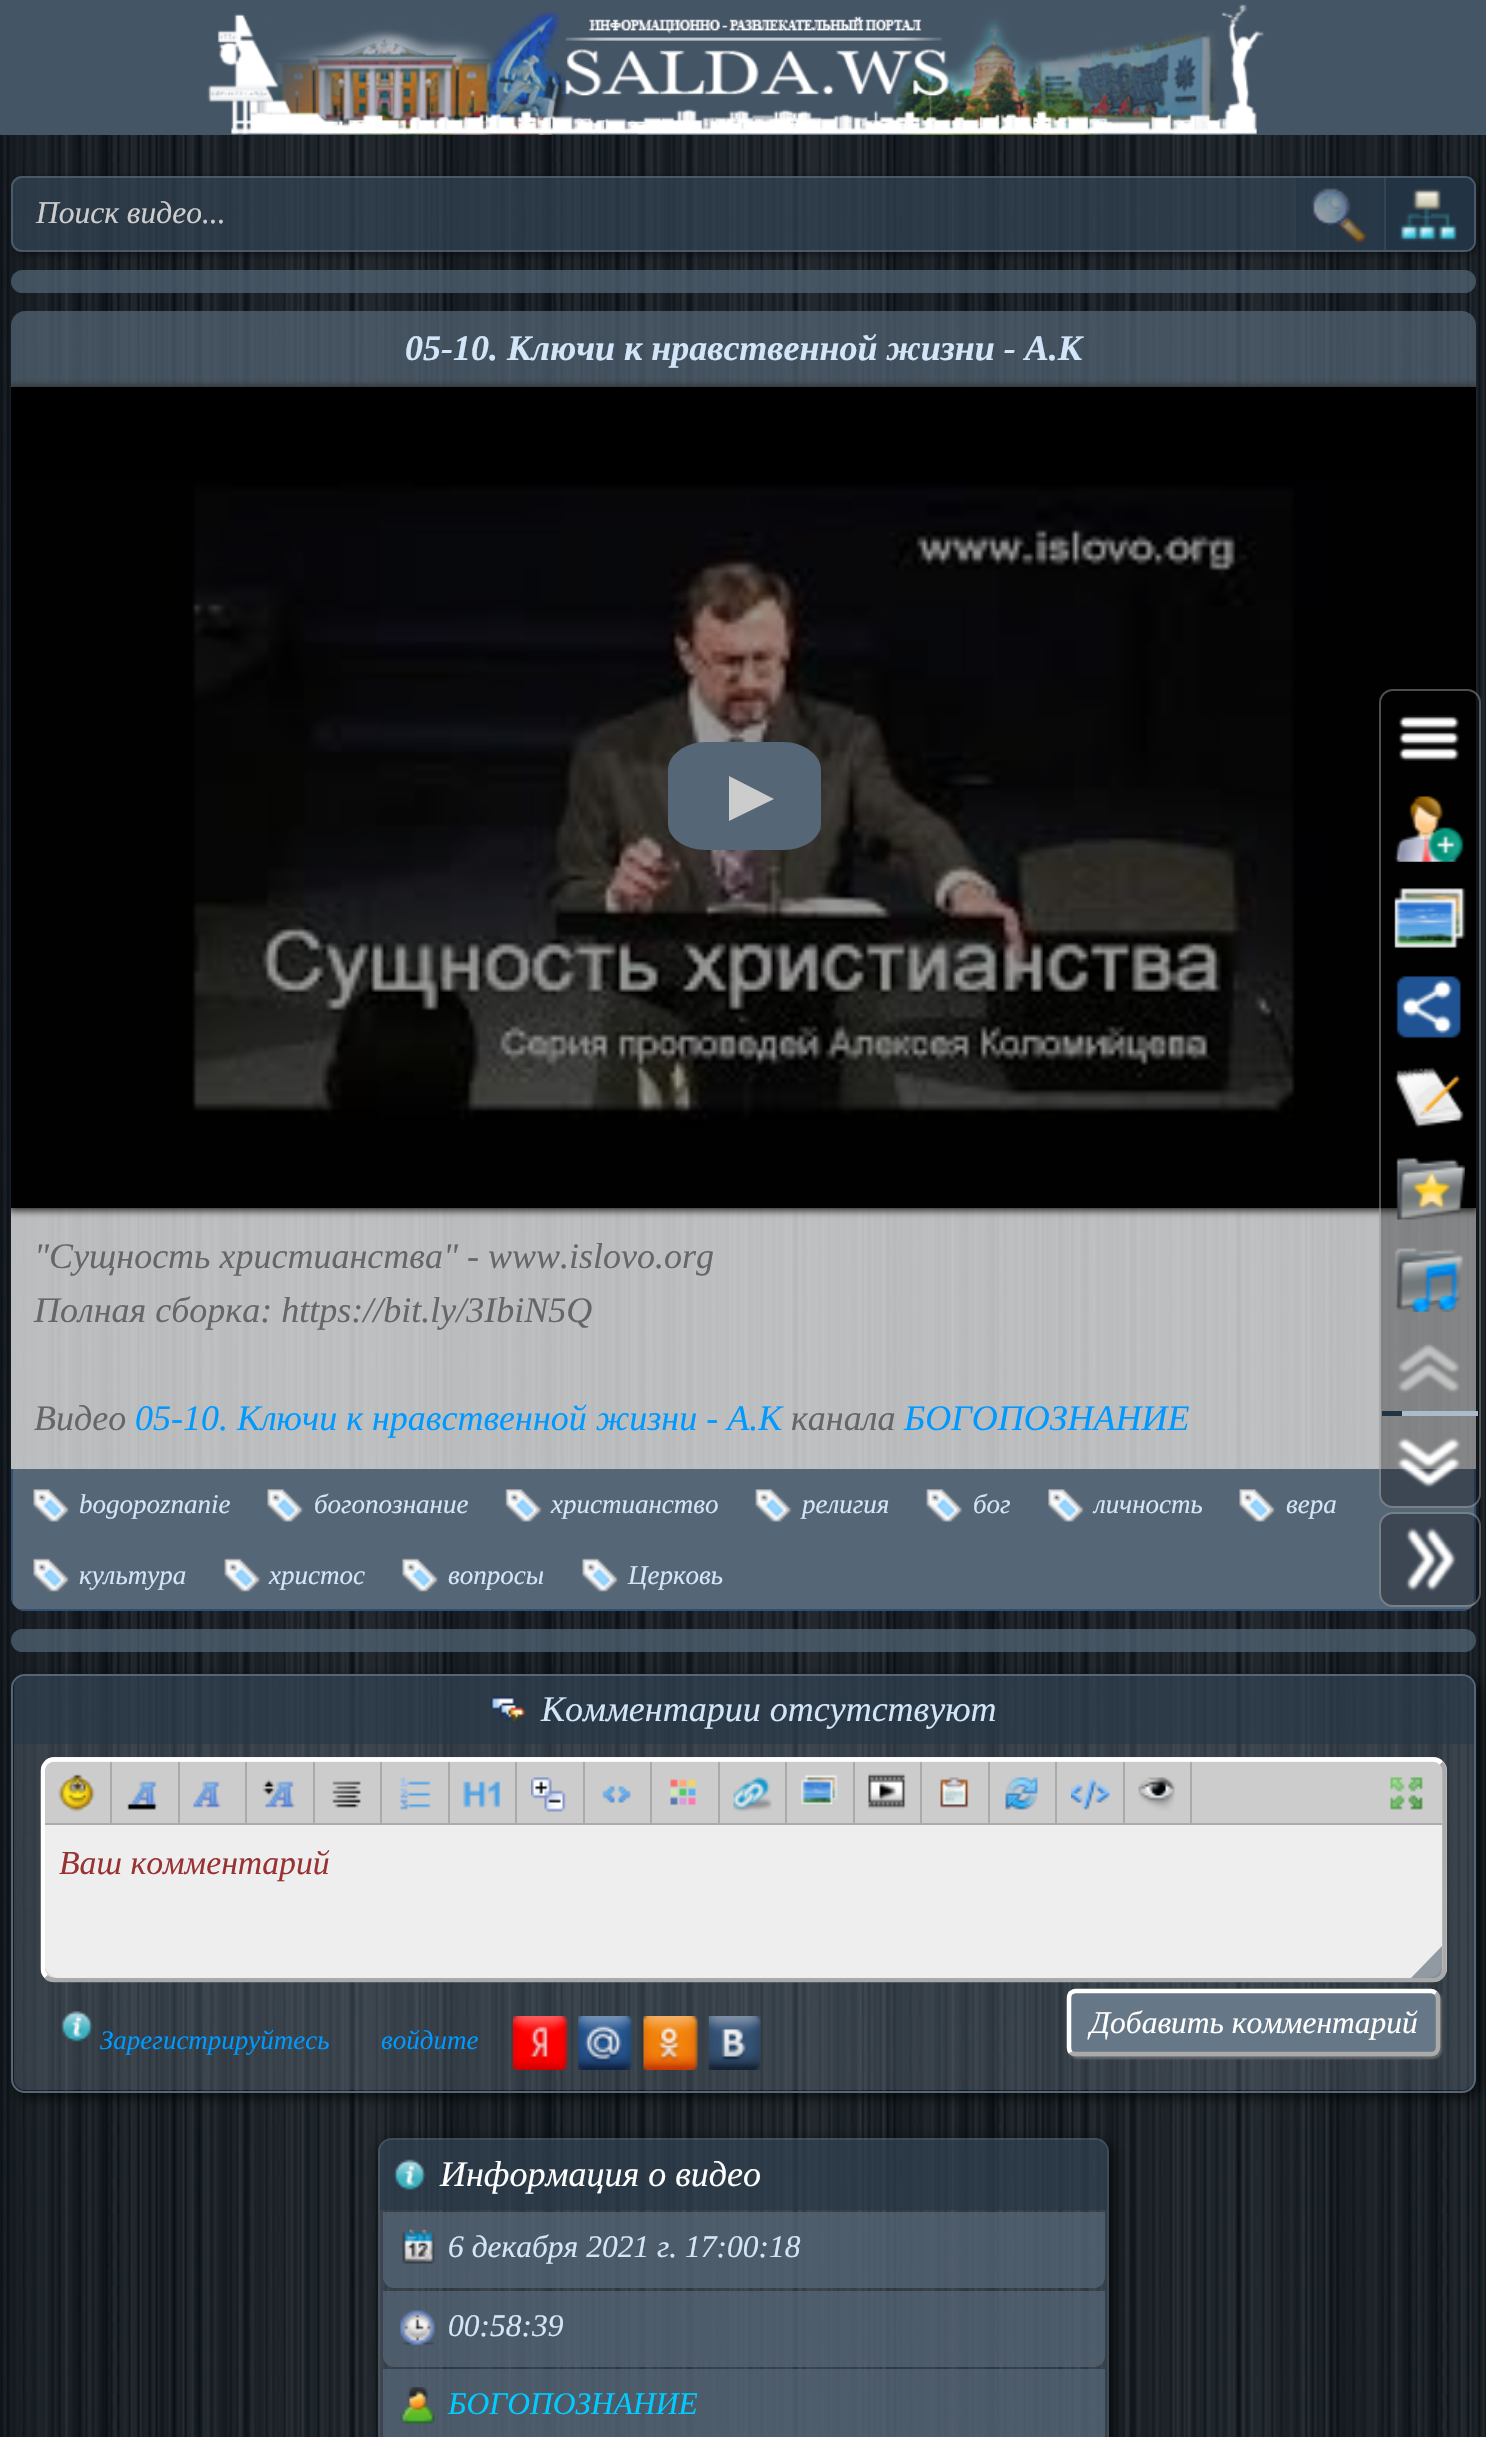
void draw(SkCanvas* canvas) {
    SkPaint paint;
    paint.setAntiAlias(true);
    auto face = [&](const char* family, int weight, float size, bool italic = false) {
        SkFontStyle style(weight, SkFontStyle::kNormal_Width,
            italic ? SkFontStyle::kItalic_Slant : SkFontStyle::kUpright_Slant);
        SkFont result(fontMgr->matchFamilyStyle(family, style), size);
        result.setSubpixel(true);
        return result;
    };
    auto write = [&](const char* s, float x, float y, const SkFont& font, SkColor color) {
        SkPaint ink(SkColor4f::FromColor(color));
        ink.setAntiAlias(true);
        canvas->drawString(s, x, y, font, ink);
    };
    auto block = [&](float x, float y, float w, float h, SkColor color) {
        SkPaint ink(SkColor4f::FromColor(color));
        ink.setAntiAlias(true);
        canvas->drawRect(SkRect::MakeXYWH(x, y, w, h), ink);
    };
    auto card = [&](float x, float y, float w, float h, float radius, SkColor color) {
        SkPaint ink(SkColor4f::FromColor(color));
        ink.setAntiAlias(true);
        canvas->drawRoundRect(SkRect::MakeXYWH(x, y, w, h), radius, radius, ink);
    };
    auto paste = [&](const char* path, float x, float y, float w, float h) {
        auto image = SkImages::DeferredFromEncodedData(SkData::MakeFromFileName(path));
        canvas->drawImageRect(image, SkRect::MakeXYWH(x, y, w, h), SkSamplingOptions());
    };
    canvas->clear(SK_ColorWHITE);
    paste("pic1.png", 0, 135, 1486, 2302);
    block(0, 0, 1486, 135, SkColorSetRGB(68, 85, 102));
    paste("pic2.png", 207, 4, 1058, 131);
    canvas->save();
    canvas->clipPath(SkPathBuilder(SkPathFillType::kEvenOdd).moveTo(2, 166).lineTo(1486, 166).lineTo(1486, 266).lineTo(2, 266).close().moveTo(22, 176).lineTo(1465, 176).cubicTo(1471, 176, 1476, 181, 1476, 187).lineTo(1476, 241).cubicTo(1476, 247, 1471, 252, 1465, 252).lineTo(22, 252).cubicTo(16, 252, 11, 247, 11, 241).lineTo(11, 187).cubicTo(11, 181, 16, 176, 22, 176).close().detach(), true);
    paint.setColor(SkColorSetARGB(128, 0, 0, 0));
    paint.setMaskFilter(SkMaskFilter::MakeBlur(kNormal_SkBlurStyle, 3.5f));
    canvas->drawRoundRect(SkRect::MakeXYWH(14, 178, 1464, 76), 11, 11, paint);
    paint.setMaskFilter(nullptr);
    canvas->restore();
    card(11, 176, 1465, 76, 11, SkColorSetARGB(179, 51, 68, 85));
    paint.setStyle(SkPaint::kStroke_Style);
    paint.setStrokeWidth(2);
    paint.setColor(SkColorSetARGB(128, 102, 119, 136));
    canvas->drawRoundRect(SkRect::MakeXYWH(12, 177, 1463, 74), 10, 10, paint);
    auto kFont1 = face("Liberation Serif", 400, 31.5f, true);
    write("Поиск видео...", 36, 223, kFont1, SkColorSetRGB(204, 204, 204));
    canvas->save();
    canvas->clipPath(SkPathBuilder().moveTo(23, 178).lineTo(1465, 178).cubicTo(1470, 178, 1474, 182, 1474, 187).lineTo(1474, 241).cubicTo(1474, 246, 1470, 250, 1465, 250).lineTo(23, 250).cubicTo(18, 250, 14, 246, 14, 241).lineTo(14, 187).cubicTo(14, 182, 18, 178, 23, 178).close().detach(), true);
    canvas->clipPath(SkPathBuilder(SkPathFillType::kEvenOdd).moveTo(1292, 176).lineTo(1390, 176).lineTo(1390, 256).lineTo(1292, 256).close().moveTo(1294, 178).lineTo(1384, 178).lineTo(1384, 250).lineTo(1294, 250).close().detach(), true);
    paint.setStyle(SkPaint::kFill_Style);
    paint.setColor(SkColorSetARGB(128, 102, 102, 102));
    paint.setMaskFilter(SkMaskFilter::MakeBlur(kNormal_SkBlurStyle, 1));
    canvas->drawRect(SkRect::MakeXYWH(1296, 180, 90, 72), paint);
    paint.setMaskFilter(nullptr);
    canvas->restore();
    block(1296, 178, 88, 72, SkColorSetARGB(128, 34, 51, 68));
    paste("pic3.png", 1311, 188, 56, 56);
    block(1294, 178, 2, 72, SkColorSetRGB(47, 62, 78));
    paint.setColor(SkColorSetRGB(34, 51, 68));
    canvas->drawPath(SkPathBuilder().moveTo(1384, 178).lineTo(1465, 178).cubicTo(1470, 178, 1474, 182, 1474, 187).lineTo(1474, 241).cubicTo(1474, 246, 1470, 250, 1465, 250).lineTo(1384, 250).close().detach(), paint);
    paste("pic4.png", 1399, 188, 58, 54);
    block(1384, 178, 2, 72, SkColorSetRGB(51, 68, 85));
    card(11, 270, 1465, 23, 11.5f, SkColorSetARGB(179, 84, 102, 120));
    paint.setColor(SkColorSetARGB(179, 85, 102, 119));
    canvas->drawPath(SkPathBuilder().moveTo(25, 311).lineTo(1462, 311).cubicTo(1469.5f, 311, 1476, 317.5f, 1476, 325).lineTo(1476, 387).lineTo(11, 387).lineTo(11, 325).cubicTo(11, 317.5f, 17.5f, 311, 25, 311).close().detach(), paint);
    auto kFont2 = face("Liberation Serif", 700, 36, true);
    write("05-10. Ключи к нравственной жизни - А.К", 405, 360, kFont2, SkColorSetRGB(211, 230, 249));
    block(11, 1208, 1465, 261, SkColorSetARGB(179, 255, 255, 255));
    canvas->save();
    canvas->clipPath(SkPathBuilder().moveTo(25, 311).lineTo(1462, 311).cubicTo(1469.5f, 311, 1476, 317.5f, 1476, 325).lineTo(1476, 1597).cubicTo(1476, 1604.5f, 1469.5f, 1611, 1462, 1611).lineTo(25, 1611).cubicTo(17.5f, 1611, 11, 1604.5f, 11, 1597).lineTo(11, 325).cubicTo(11, 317.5f, 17.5f, 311, 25, 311).close().detach(), true);
    paint.setColor(SkColorSetRGB(51, 51, 51));
    paint.setMaskFilter(SkMaskFilter::MakeBlur(kNormal_SkBlurStyle, 3.5f));
    canvas->drawRect(SkRect::MakeXYWH(9, 385, 1469, 826), paint);
    paint.setMaskFilter(nullptr);
    canvas->restore();
    block(11, 387, 1465, 821, SK_ColorBLACK);
    paste("pic5.png", 12, 481, 1464, 728);
    block(193, 484, 1102, 635, SkColorSetARGB(102, 0, 0, 0));
    paint.setColor(SkColorSetRGB(85, 102, 119));
    canvas->drawPath(SkPathBuilder().moveTo(706, 742).lineTo(783, 742).cubicTo(804, 742, 821, 755, 821, 770).lineTo(821, 824).cubicTo(821, 838, 804, 850, 783, 850).lineTo(706, 850).cubicTo(685, 850, 668, 838, 668, 824).lineTo(668, 770).cubicTo(668, 755, 685, 742, 706, 742).close().detach(), paint);
    paint.setColor(SkColorSetRGB(204, 204, 204));
    canvas->drawPath(SkPathBuilder().moveTo(729, 821).lineTo(729, 776).lineTo(774, 799).close().detach(), paint);
    auto kFont3 = face("Liberation Serif", 400, 36, true);
    write("\"Сущность христианства\" - www.islovo.org", 34, 1268, kFont3, SkColorSetRGB(102, 102, 102));
    write("Полная сборка: https://bit.ly/3IbiN5Q", 34, 1322, kFont3, SkColorSetRGB(102, 102, 102));
    write("Видео", 34, 1430, kFont3, SkColorSetRGB(102, 102, 102));
    write("05-10. Ключи к нравственной жизни - А.К", 135, 1430, kFont3, SkColorSetRGB(0, 153, 255));
    write("канала", 791, 1430, kFont3, SkColorSetRGB(102, 102, 102));
    write("БОГОПОЗНАНИЕ", 904, 1430, kFont3, SkColorSetRGB(0, 153, 255));
    paint.setColor(SkColorSetRGB(85, 102, 119));
    canvas->drawPath(SkPathBuilder().moveTo(11, 1469).lineTo(1476, 1469).lineTo(1476, 1597).cubicTo(1476, 1604.5f, 1469.5f, 1611, 1462, 1611).lineTo(25, 1611).cubicTo(17.5f, 1611, 11, 1604.5f, 11, 1597).close().detach(), paint);
    canvas->save();
    canvas->clipPath(SkPathBuilder().moveTo(25, 311).lineTo(1462, 311).cubicTo(1469.5f, 311, 1476, 317.5f, 1476, 325).lineTo(1476, 1597).cubicTo(1476, 1604.5f, 1469.5f, 1611, 1462, 1611).lineTo(25, 1611).cubicTo(17.5f, 1611, 11, 1604.5f, 11, 1597).lineTo(11, 325).cubicTo(11, 317.5f, 17.5f, 311, 25, 311).close().detach(), true);
    block(1474, 1469, 2, 142, SkColorSetRGB(46, 80, 119));
    block(11, 1609, 1465, 2, SkColorSetRGB(46, 80, 119));
    block(11, 1469, 2, 142, SkColorSetRGB(46, 80, 119));
    canvas->restore();
    paste("pic6.png", 33, 1489, 37, 33);
    auto kFont4 = face("Liberation Serif", 400, 27, true);
    write("bogopoznanie", 79, 1513, kFont4, SkColorSetRGB(211, 230, 249));
    paste("pic6.png", 267, 1489, 37, 33);
    write("богопознание", 314, 1513, kFont4, SkColorSetRGB(211, 230, 249));
    paste("pic7.png", 505, 1489, 37, 33);
    write("христианство", 551, 1513, kFont4, SkColorSetRGB(211, 230, 249));
    paste("pic8.png", 755, 1489, 37, 33);
    write("религия", 802, 1513, kFont4, SkColorSetRGB(211, 230, 249));
    paste("pic9.png", 926, 1489, 37, 33);
    write("бог", 973, 1513, kFont4, SkColorSetRGB(211, 230, 249));
    paste("pic10.png", 1048, 1489, 37, 33);
    write("личность", 1094, 1513, kFont4, SkColorSetRGB(211, 230, 249));
    paste("pic6.png", 1239, 1489, 37, 33);
    write("вера", 1286, 1513, kFont4, SkColorSetRGB(211, 230, 249));
    paste("pic11.png", 33, 1558, 37, 34);
    write("культура", 79, 1584, kFont4, SkColorSetRGB(211, 230, 249));
    paste("pic12.png", 224, 1558, 37, 34);
    write("христос", 269, 1584, kFont4, SkColorSetRGB(211, 230, 249));
    paste("pic13.png", 402, 1558, 37, 34);
    write("вопросы", 448, 1584, kFont4, SkColorSetRGB(211, 230, 249));
    paste("pic11.png", 582, 1558, 37, 34);
    write("Церковь", 628, 1584, kFont4, SkColorSetRGB(211, 230, 249));
    card(11, 1629, 1465, 23, 11.5f, SkColorSetARGB(179, 84, 102, 120));
    canvas->save();
    canvas->clipPath(SkPathBuilder(SkPathFillType::kEvenOdd).moveTo(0, 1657).lineTo(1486, 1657).lineTo(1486, 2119).lineTo(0, 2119).close().moveTo(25, 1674).lineTo(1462, 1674).cubicTo(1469.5f, 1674, 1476, 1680.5f, 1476, 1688).lineTo(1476, 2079).cubicTo(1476, 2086.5f, 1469.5f, 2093, 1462, 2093).lineTo(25, 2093).cubicTo(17.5f, 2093, 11, 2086.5f, 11, 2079).lineTo(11, 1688).cubicTo(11, 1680.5f, 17.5f, 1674, 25, 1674).close().detach(), true);
    paint.setColor(SkColorSetARGB(179, 0, 0, 0));
    paint.setMaskFilter(SkMaskFilter::MakeBlur(kNormal_SkBlurStyle, 7));
    canvas->drawRoundRect(SkRect::MakeXYWH(16, 1679, 1465, 418), 14, 14, paint);
    paint.setMaskFilter(nullptr);
    canvas->restore();
    paint.setStyle(SkPaint::kStroke_Style);
    paint.setColor(SkColorSetRGB(85, 102, 119));
    canvas->drawRoundRect(SkRect::MakeXYWH(12, 1675, 1463, 417), 13, 13, paint);
    paint.setStyle(SkPaint::kFill_Style);
    paint.setColor(SkColorSetARGB(179, 51, 68, 85));
    canvas->drawPath(SkPathBuilder().moveTo(25, 1676).lineTo(1463, 1676).cubicTo(1469, 1676, 1474, 1681, 1474, 1687).lineTo(1474, 1744).lineTo(14, 1744).lineTo(14, 1687).cubicTo(14, 1681, 19, 1676, 25, 1676).close().detach(), paint);
    paste("pic14.png", 490, 1696, 35, 26);
    write("Комментарии отсутствуют", 541, 1721, kFont3, SkColorSetRGB(211, 230, 249));
    paint.setColor(SkColorSetARGB(77, 119, 136, 153));
    canvas->drawPath(SkPathBuilder().moveTo(14, 1744).lineTo(1474, 1744).lineTo(1474, 2079).cubicTo(1474, 2085, 1469, 2090, 1463, 2090).lineTo(25, 2090).cubicTo(19, 2090, 14, 2085, 14, 2079).close().detach(), paint);
    card(41, 1757, 1406, 225, 14, SkColorSetRGB(221, 221, 221));
    paint.setStyle(SkPaint::kStroke_Style);
    paint.setStrokeWidth(4.5f);
    paint.setColor(SkColorSetRGB(170, 170, 170));
    canvas->drawPath(SkPathBuilder().moveTo(1441, 1763).cubicTo(1443.5f, 1765, 1444.5f, 1768, 1444.5f, 1771).lineTo(1444.5f, 1969).cubicTo(1444.5f, 1971.5f, 1443.5f, 1974.5f, 1441, 1976.5f).cubicTo(1439, 1979, 1436, 1980, 1433, 1980).lineTo(54, 1980).cubicTo(51, 1980, 48, 1979, 46, 1976.5f).detach(), paint);
    paint.setColor(SK_ColorWHITE);
    canvas->drawPath(SkPathBuilder().moveTo(46, 1976.5f).cubicTo(44, 1974.5f, 43, 1971.5f, 43, 1969).lineTo(43, 1771).cubicTo(43, 1768, 44, 1765, 46, 1763).cubicTo(48, 1760.5f, 51, 1759.5f, 54, 1759.5f).lineTo(1433, 1759.5f).cubicTo(1436, 1759.5f, 1439, 1760.5f, 1441, 1763).detach(), paint);
    paint.setStyle(SkPaint::kFill_Style);
    paint.setColor(SkColorSetRGB(204, 204, 204));
    canvas->drawPath(SkPathBuilder().moveTo(54, 1762).lineTo(1433, 1762).cubicTo(1438, 1762, 1442, 1766, 1442, 1771).lineTo(1442, 1825).lineTo(45, 1825).lineTo(45, 1771).cubicTo(45, 1766, 49, 1762, 54, 1762).close().detach(), paint);
    block(45, 1823, 1397, 2, SkColorSetRGB(171, 171, 171));
    block(110, 1762, 2, 61, SkColorSetRGB(170, 170, 170));
    paste("pic15.png", 58, 1774, 37, 38);
    block(178, 1762, 2, 61, SkColorSetRGB(170, 170, 170));
    paste("pic16.png", 127, 1781, 31, 29);
    block(245, 1762, 2, 61, SkColorSetRGB(170, 170, 170));
    paste("pic17.png", 193, 1781, 28, 27);
    block(313, 1762, 2, 61, SkColorSetRGB(170, 170, 170));
    paste("pic18.png", 262, 1779, 34, 29);
    block(380, 1762, 2, 61, SkColorSetRGB(170, 170, 170));
    paste("pic19.png", 332, 1781, 29, 27);
    block(448, 1762, 2, 61, SkColorSetRGB(170, 170, 170));
    paste("pic20.png", 400, 1777, 31, 33);
    block(515, 1762, 2, 61, SkColorSetRGB(170, 170, 170));
    paste("pic21.png", 463, 1781, 38, 27);
    block(583, 1762, 2, 61, SkColorSetRGB(170, 170, 170));
    paste("pic22.png", 531, 1777, 35, 35);
    block(650, 1762, 2, 61, SkColorSetRGB(170, 170, 170));
    paste("pic23.png", 602, 1785, 29, 18);
    block(718, 1762, 2, 61, SkColorSetRGB(170, 170, 170));
    paste("pic24.png", 670, 1779, 26, 27);
    block(785, 1762, 2, 61, SkColorSetRGB(170, 170, 170));
    paste("pic25.png", 733, 1777, 39, 35);
    block(853, 1762, 2, 61, SkColorSetRGB(170, 170, 170));
    paste("pic26.png", 801, 1774, 37, 32);
    block(920, 1762, 2, 61, SkColorSetRGB(170, 170, 170));
    paste("pic27.png", 868, 1773, 38, 37);
    block(988, 1762, 2, 61, SkColorSetRGB(170, 170, 170));
    paste("pic28.png", 940, 1777, 29, 31);
    block(1055, 1762, 2, 61, SkColorSetRGB(170, 170, 170));
    paste("pic29.png", 1005, 1777, 33, 33);
    block(1123, 1762, 2, 61, SkColorSetRGB(170, 170, 170));
    paste("pic30.png", 1071, 1779, 39, 31);
    block(1190, 1762, 2, 61, SkColorSetRGB(170, 170, 170));
    paste("pic31.png", 1138, 1777, 37, 34);
    paste("pic32.png", 1390, 1777, 33, 33);
    paint.setColor(SkColorSetRGB(238, 238, 238));
    canvas->drawPath(SkPathBuilder().moveTo(45, 1825).lineTo(1442, 1825).lineTo(1442, 1964).cubicTo(1442, 1971.5f, 1435.5f, 1978, 1428, 1978).lineTo(59, 1978).cubicTo(51.5f, 1978, 45, 1971.5f, 45, 1964).close().detach(), paint);
    auto kFont5 = face("Liberation Serif", 400, 33.75f, true);
    write("Ваш комментарий", 59, 1874, kFont5, SkColorSetRGB(153, 51, 51));
    paint.setColor(SkColorSetARGB(128, 51, 68, 85));
    canvas->drawPath(SkPathBuilder().moveTo(1442, 1946).lineTo(1411, 1978).lineTo(1433, 1978).cubicTo(1438, 1978, 1442, 1974, 1442, 1969).close().detach(), paint);
    paste("pic33.png", 60, 2011, 33, 31);
    write("Зарегистрируйтесь", 100, 2049, kFont4, SkColorSetRGB(0, 153, 255));
    write("войдите", 381, 2049, kFont4, SkColorSetRGB(0, 153, 255));
    paste("pic34.png", 513, 2016, 55, 54);
    paste("pic35.png", 578, 2016, 55, 54);
    paste("pic36.png", 643, 2016, 56, 54);
    paste("pic37.png", 708, 2016, 53, 54);
    paint.setColor(SkColorSetRGB(102, 102, 102));
    paint.setMaskFilter(SkMaskFilter::MakeBlur(kNormal_SkBlurStyle, 1));
    canvas->drawRoundRect(SkRect::MakeXYWH(1069, 1991, 373, 68), 9, 9, paint);
    paint.setMaskFilter(nullptr);
    card(1067, 1989, 373, 68, 9, SkColorSetRGB(102, 119, 136));
    paint.setStyle(SkPaint::kStroke_Style);
    paint.setColor(SkColorSetRGB(170, 170, 170));
    canvas->drawPath(SkPathBuilder().moveTo(1436, 1993).cubicTo(1437, 1994.5f, 1438, 1996, 1438, 1998).lineTo(1438, 2047.5f).cubicTo(1438, 2049.5f, 1437, 2051, 1436, 2052.5f).cubicTo(1434.5f, 2053.5f, 1433, 2054, 1431, 2054).lineTo(1075.5f, 2054).cubicTo(1073.5f, 2054, 1072, 2053.5f, 1070.5f, 2052.5f).detach(), paint);
    paint.setColor(SK_ColorWHITE);
    canvas->drawPath(SkPathBuilder().moveTo(1070.5f, 2052.5f).cubicTo(1069.5f, 2051, 1069, 2049.5f, 1069, 2047.5f).lineTo(1069, 1998).cubicTo(1069, 1996, 1069.5f, 1994.5f, 1070.5f, 1993).cubicTo(1072, 1992, 1073.5f, 1991, 1075.5f, 1991).lineTo(1431, 1991).cubicTo(1433, 1991, 1434.5f, 1992, 1436, 1993).detach(), paint);
    write("Добавить комментарий", 1090, 2033, kFont1, SK_ColorWHITE);
    canvas->save();
    canvas->clipPath(SkPathBuilder(SkPathFillType::kEvenOdd).moveTo(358, 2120).lineTo(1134, 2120).lineTo(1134, 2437).lineTo(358, 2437).close().moveTo(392, 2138).lineTo(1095, 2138).cubicTo(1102.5f, 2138, 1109, 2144.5f, 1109, 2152).lineTo(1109, 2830).cubicTo(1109, 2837.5f, 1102.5f, 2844, 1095, 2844).lineTo(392, 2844).cubicTo(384.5f, 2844, 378, 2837.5f, 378, 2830).lineTo(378, 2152).cubicTo(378, 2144.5f, 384.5f, 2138, 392, 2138).close().detach(), true);
    paint.setStyle(SkPaint::kFill_Style);
    paint.setColor(SkColorSetARGB(179, 0, 0, 0));
    paint.setMaskFilter(SkMaskFilter::MakeBlur(kNormal_SkBlurStyle, 7));
    canvas->drawRoundRect(SkRect::MakeXYWH(380, 2142, 732, 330), 14, 14, paint);
    paint.setMaskFilter(nullptr);
    canvas->restore();
    paint.setStyle(SkPaint::kStroke_Style);
    paint.setStrokeWidth(2);
    paint.setColor(SkColorSetARGB(128, 102, 119, 136));
    canvas->drawRoundRect(SkRect::MakeXYWH(379, 2139, 729, 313), 13, 13, paint);
    paint.setStyle(SkPaint::kFill_Style);
    paint.setColor(SkColorSetARGB(179, 51, 68, 85));
    canvas->drawPath(SkPathBuilder().moveTo(391, 2140).lineTo(1096, 2140).cubicTo(1102, 2140, 1107, 2145, 1107, 2151).lineTo(1107, 2210).lineTo(380, 2210).lineTo(380, 2151).cubicTo(380, 2145, 385, 2140, 391, 2140).close().detach(), paint);
    paste("pic38.png", 393, 2159, 33, 32);
    write("Информация о видео", 440, 2186, kFont3, SK_ColorWHITE);
    block(380, 2210, 727, 227, SkColorSetARGB(77, 119, 136, 153));
    paint.setColor(SkColorSetARGB(179, 85, 102, 119));
    canvas->drawPath(SkPathBuilder().moveTo(383, 2212).lineTo(1105, 2212).lineTo(1105, 2277).cubicTo(1105, 2283, 1100, 2288, 1094, 2288).lineTo(394, 2288).cubicTo(388, 2288, 383, 2283, 383, 2277).close().detach(), paint);
    paste("pic39.png", 402, 2229, 33, 35);
    write("6 декабря 2021 г. 17:00:18", 448, 2257, kFont1, SkColorSetRGB(211, 230, 249));
    canvas->drawPath(SkPathBuilder().moveTo(383, 2291).lineTo(1105, 2291).lineTo(1105, 2356).cubicTo(1105, 2362, 1100, 2367, 1094, 2367).lineTo(394, 2367).cubicTo(388, 2367, 383, 2362, 383, 2356).close().detach(), paint);
    paste("pic40.png", 400, 2310, 35, 36);
    write("00:58:39", 448, 2336, kFont1, SkColorSetRGB(211, 230, 249));
    canvas->drawPath(SkPathBuilder().moveTo(383, 2369).lineTo(1105, 2369).lineTo(1105, 2435).cubicTo(1105, 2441, 1100, 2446, 1094, 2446).lineTo(394, 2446).cubicTo(388, 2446, 383, 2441, 383, 2435).close().detach(), paint);
    paste("pic41.png", 400, 2387, 35, 37);
    write("БОГОПОЗНАНИЕ", 448, 2414, kFont1, SkColorSetRGB(0, 204, 255));
    card(1379, 689, 102, 819, 14, SkColorSetARGB(77, 0, 0, 0));
    paint.setStyle(SkPaint::kStroke_Style);
    paint.setColor(SkColorSetARGB(77, 255, 255, 255));
    canvas->drawRoundRect(SkRect::MakeXYWH(1380, 690, 100, 817), 13, 13, paint);
    paste("pic42.png", 1398, 715, 62, 46);
    paste("pic43.png", 1394, 796, 70, 66);
    paste("pic44.png", 1394, 888, 72, 60);
    paste("pic45.png", 1396, 976, 66, 62);
    paste("pic46.png", 1394, 1067, 70, 61);
    paste("pic47.png", 1396, 1156, 69, 64);
    paste("pic48.png", 1395, 1247, 69, 65);
    paste("pic49.png", 1397, 1343, 63, 50);
    block(1402, 1411, 76, 5, SkColorSetRGB(170, 187, 204));
    block(1382, 1411, 20, 5, SkColorSetRGB(34, 51, 68));
    paste("pic50.png", 1397, 1437, 64, 51);
    card(1379, 1512, 102, 95, 14, SkColorSetARGB(77, 0, 0, 0));
    canvas->drawRoundRect(SkRect::MakeXYWH(1380, 1513, 100, 93), 13, 13, paint);
    paste("pic51.png", 1406, 1527, 51, 65);
}
